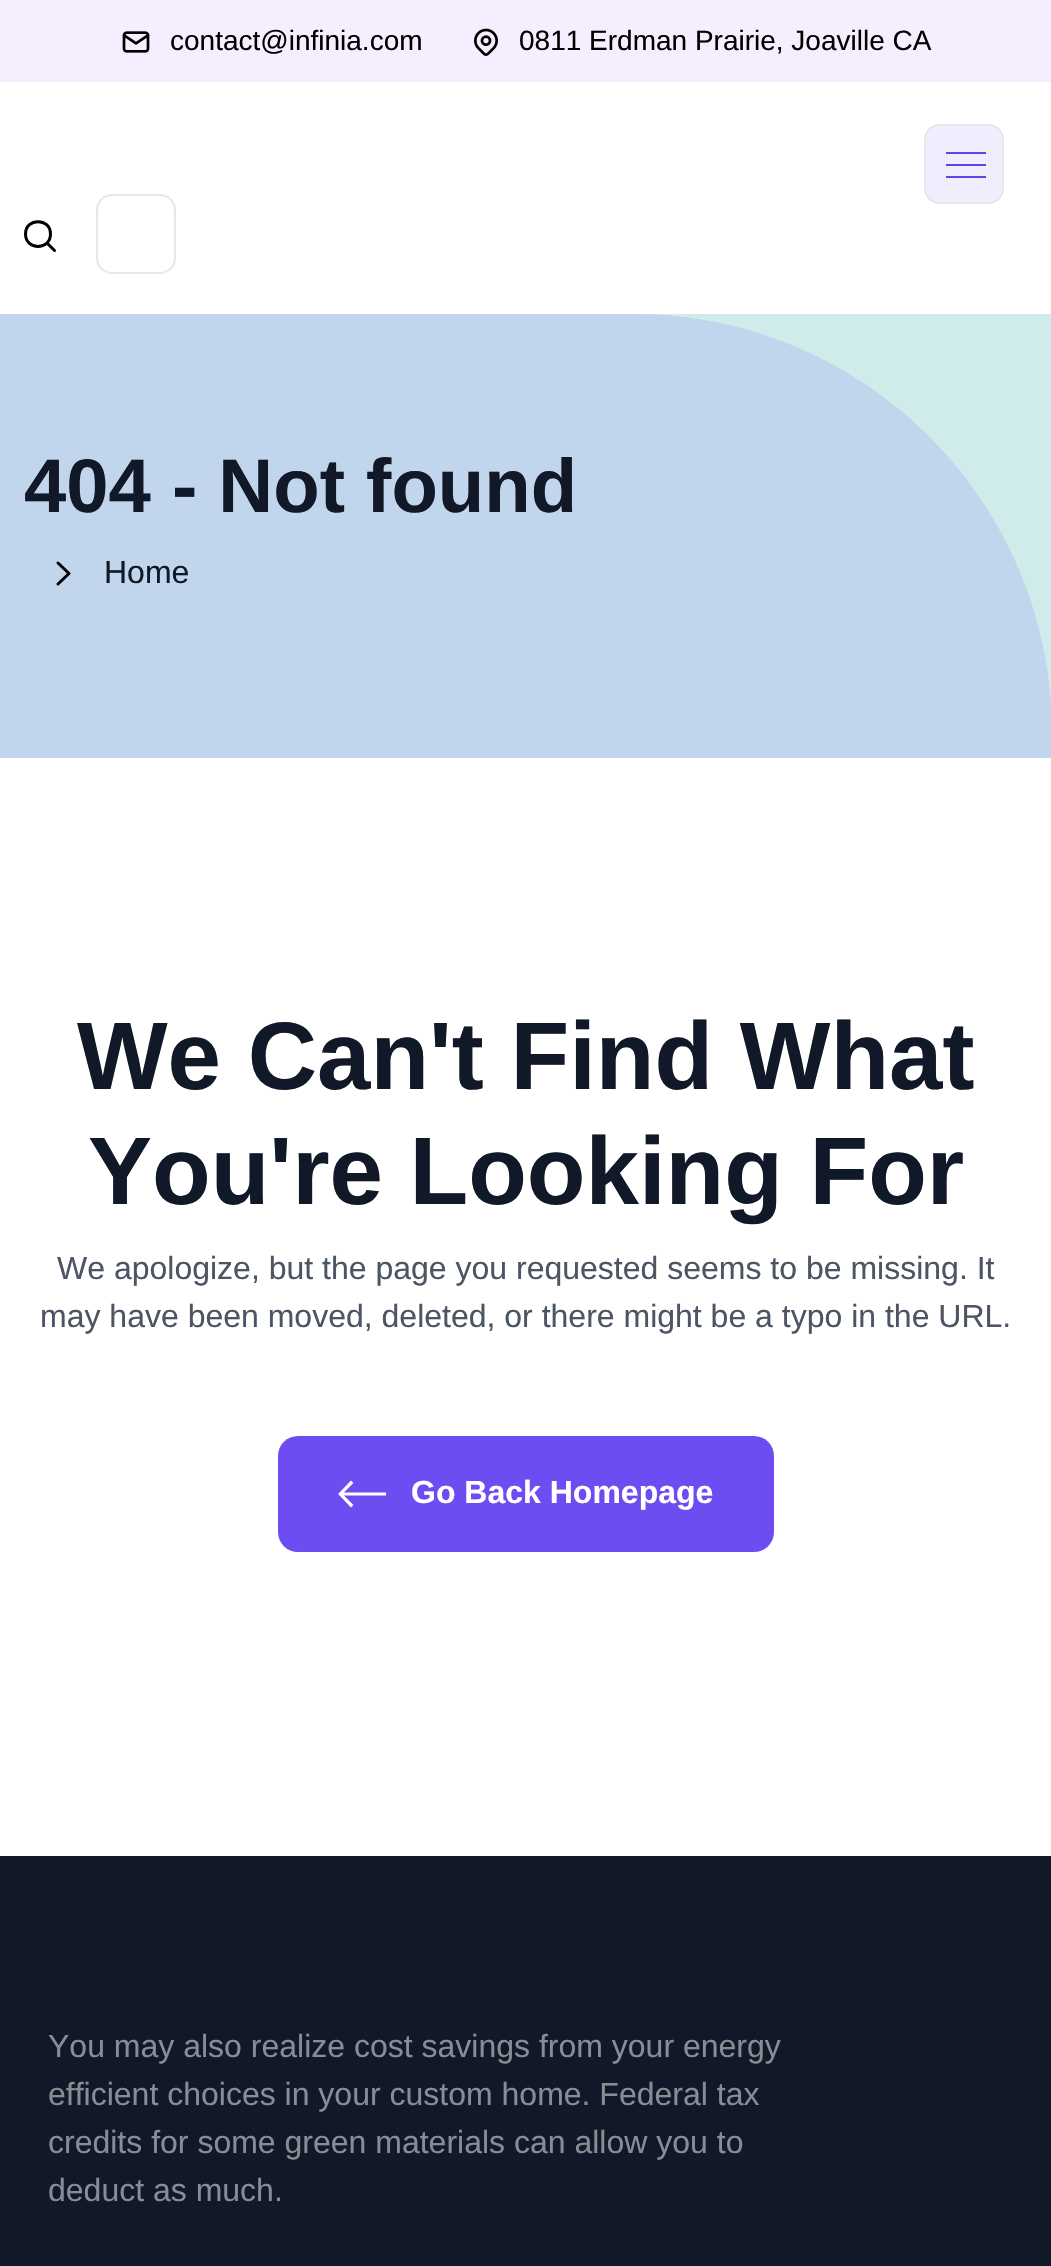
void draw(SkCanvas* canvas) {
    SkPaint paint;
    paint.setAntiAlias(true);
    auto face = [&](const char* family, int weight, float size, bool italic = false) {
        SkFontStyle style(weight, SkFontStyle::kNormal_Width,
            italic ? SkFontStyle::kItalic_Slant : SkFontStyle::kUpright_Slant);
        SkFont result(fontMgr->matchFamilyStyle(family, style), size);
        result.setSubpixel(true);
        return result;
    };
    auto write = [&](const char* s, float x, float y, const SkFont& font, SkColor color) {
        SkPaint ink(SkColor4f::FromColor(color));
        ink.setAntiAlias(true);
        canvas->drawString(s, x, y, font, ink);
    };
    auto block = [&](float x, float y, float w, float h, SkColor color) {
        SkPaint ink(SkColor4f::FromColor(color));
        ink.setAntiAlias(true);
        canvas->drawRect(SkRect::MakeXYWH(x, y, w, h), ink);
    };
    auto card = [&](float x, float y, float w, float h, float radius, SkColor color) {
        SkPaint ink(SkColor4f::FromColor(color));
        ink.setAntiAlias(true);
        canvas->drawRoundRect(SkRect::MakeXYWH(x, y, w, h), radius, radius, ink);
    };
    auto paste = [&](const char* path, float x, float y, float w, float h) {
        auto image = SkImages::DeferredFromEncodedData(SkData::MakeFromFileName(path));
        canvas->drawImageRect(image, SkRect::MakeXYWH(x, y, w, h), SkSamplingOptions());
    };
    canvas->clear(SK_ColorWHITE);
    canvas->save();
    canvas->clipRect(SkRect::MakeXYWH(0, 314, 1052, 444));
    card(0, -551, 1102, 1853, 551, SkColorSetRGB(207, 236, 235));
    canvas->restore();
    block(0, 0, 1051, 82, SkColorSetRGB(245, 238, 255));
    paste("pic1.png", 122, 31, 28, 22);
    auto kFont1 = face("Liberation Sans", 400, 28);
    write("contact@infinia.com", 170, 50, kFont1, SK_ColorBLACK);
    paste("pic2.png", 474, 28, 24, 28);
    write("0811 Erdman Prairie, Joaville CA", 519, 50, kFont1, SK_ColorBLACK);
    paint.setColor(SkColorSetRGB(240, 237, 254));
    canvas->drawRoundRect(SkRect::MakeXYWH(925, 125, 78, 78), 15, 15, paint);
    paint.setStyle(SkPaint::kStroke_Style);
    paint.setStrokeWidth(2);
    paint.setColor(SkColorSetRGB(229, 231, 235));
    canvas->drawRoundRect(SkRect::MakeXYWH(925, 125, 78, 78), 15, 15, paint);
    block(946, 152, 40, 2, SkColorSetRGB(99, 66, 236));
    block(946, 164, 40, 2, SkColorSetRGB(99, 66, 236));
    block(946, 176, 40, 2, SkColorSetRGB(99, 66, 236));
    paint.setStrokeWidth(3);
    paint.setStrokeCap(SkPaint::kRound_Cap);
    paint.setStrokeJoin(SkPaint::kRound_Join);
    paint.setColor(SK_ColorBLACK);
    canvas->drawPath(SkPathBuilder().moveTo(54.5f, 250.5f).lineTo(47, 243).moveTo(25.5f, 234).cubicTo(25.5f, 217.5f, 50.5f, 217.5f, 50.5f, 234).cubicTo(50.5f, 250.5f, 25.5f, 250.5f, 25.5f, 234).close().detach(), paint);
    paint.setStrokeWidth(2);
    paint.setStrokeCap(SkPaint::kButt_Cap);
    paint.setStrokeJoin(SkPaint::kMiter_Join);
    paint.setColor(SkColorSetRGB(229, 231, 235));
    canvas->drawRoundRect(SkRect::MakeXYWH(97, 195, 78, 78), 15, 15, paint);
    canvas->save();
    canvas->clipRect(SkRect::MakeXYWH(0, 314, 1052, 444));
    paint.setStyle(SkPaint::kFill_Style);
    paint.setColor(SkColorSetARGB(38, 114, 83, 243));
    canvas->drawPath(SkPathBuilder().moveTo(0, 314).lineTo(633, 314).cubicTo(864.5f, 314, 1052, 501.5f, 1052, 733).cubicTo(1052, 964.5f, 864.5f, 1152, 633, 1152).lineTo(0, 1152).close().detach(), paint);
    canvas->restore();
    auto kFont2 = face("Liberation Sans", 700, 76);
    write("404 - Not found", 24, 512, kFont2, SkColorSetRGB(17, 24, 39));
    paint.setStyle(SkPaint::kStroke_Style);
    paint.setStrokeWidth(3);
    paint.setStrokeCap(SkPaint::kRound_Cap);
    paint.setStrokeJoin(SkPaint::kRound_Join);
    paint.setColor(SK_ColorBLACK);
    canvas->drawPath(SkPathBuilder().moveTo(58, 563).lineTo(69, 573.5f).lineTo(58, 584).detach(), paint);
    auto kFont3 = face("Liberation Sans", 400, 32);
    write("Home", 104, 583, kFont3, SkColorSetRGB(17, 24, 39));
    auto kFont4 = face("Liberation Sans", 700, 96);
    write("We Can't Find What", 77, 1089, kFont4, SkColorSetRGB(17, 24, 39));
    write("You're Looking For", 88, 1204, kFont4, SkColorSetRGB(17, 24, 39));
    write("We apologize, but the page you requested seems to be missing. It", 57, 1279, kFont3, SkColorSetRGB(75, 85, 99));
    write("may have been moved, deleted, or there might be a typo in the URL.", 40, 1327, kFont3, SkColorSetRGB(75, 85, 99));
    card(278, 1436, 496, 116, 20, SkColorSetRGB(109, 77, 242));
    paint.setStrokeWidth(2);
    paint.setStrokeCap(SkPaint::kButt_Cap);
    paint.setStrokeJoin(SkPaint::kMiter_Join);
    paint.setColor(SK_ColorWHITE);
    canvas->drawPath(SkPathBuilder().moveTo(344, 1494.5f).lineTo(385, 1494.5f).lineTo(385, 1493.5f).lineTo(341.5f, 1493.5f).lineTo(352, 1483).lineTo(351, 1482).lineTo(339.5f, 1494).lineTo(351, 1506).lineTo(352, 1505).lineTo(341.5f, 1494.5f).close().detach(), paint);
    auto kFont5 = face("Liberation Sans", 700, 32);
    write("Go Back Homepage", 411, 1503, kFont5, SK_ColorWHITE);
    block(0, 1856, 1051, 410, SkColorSetRGB(17, 24, 39));
    write("You may also realize cost savings from your energy", 48, 2057, kFont3, SkColorSetRGB(136, 140, 147));
    write("efficient choices in your custom home. Federal tax", 48, 2105, kFont3, SkColorSetRGB(136, 140, 147));
    write("credits for some green materials can allow you to", 48, 2153, kFont3, SkColorSetRGB(136, 140, 147));
    write("deduct as much.", 48, 2201, kFont3, SkColorSetRGB(136, 140, 147));
}
